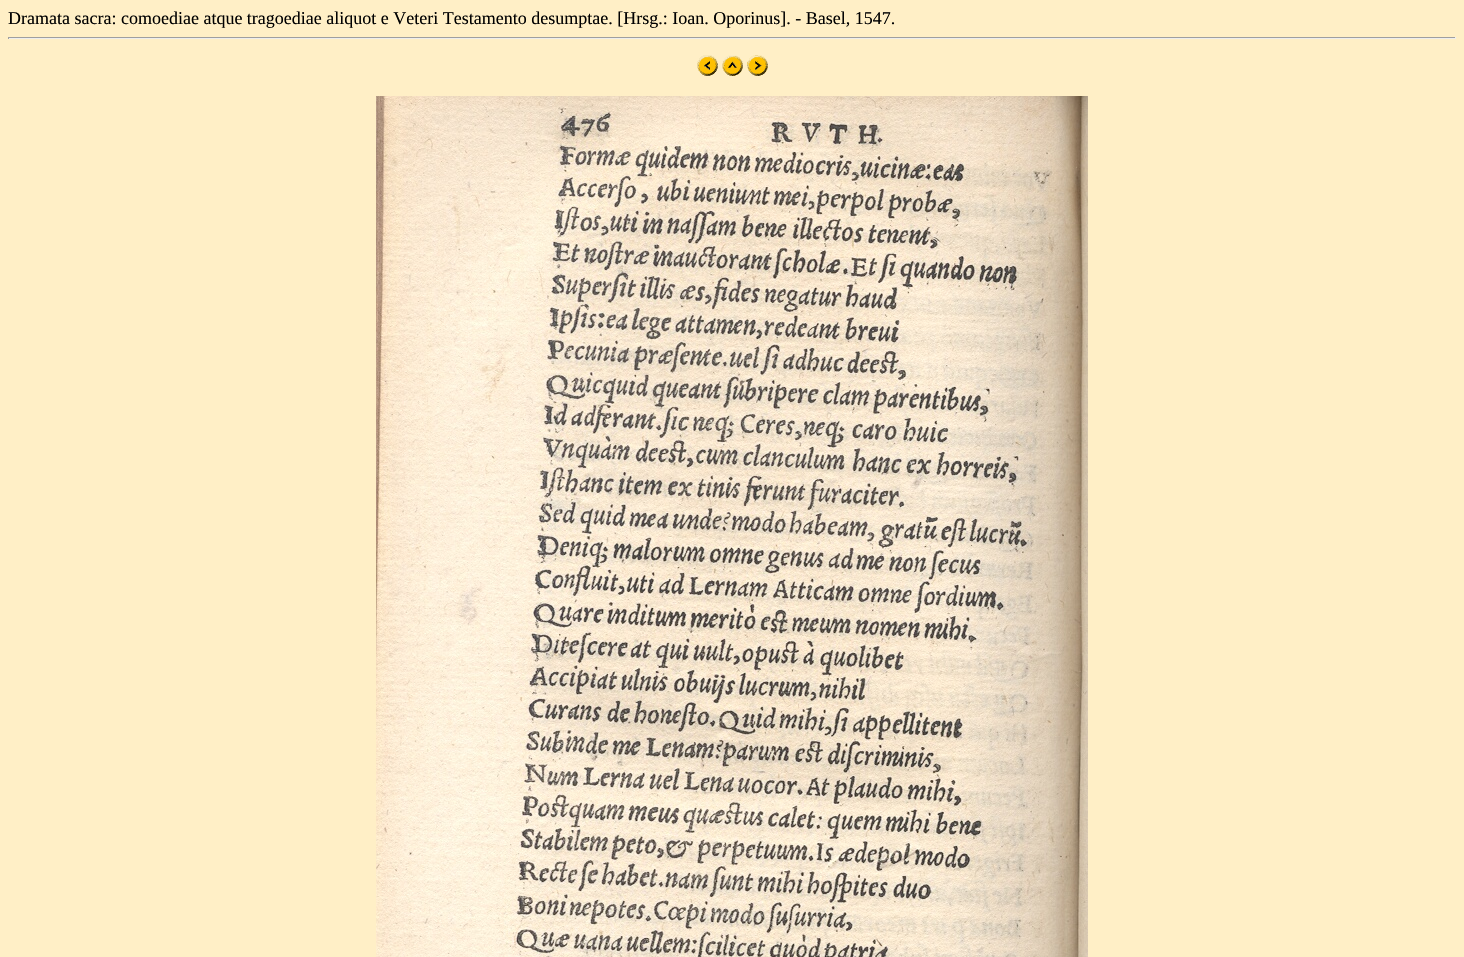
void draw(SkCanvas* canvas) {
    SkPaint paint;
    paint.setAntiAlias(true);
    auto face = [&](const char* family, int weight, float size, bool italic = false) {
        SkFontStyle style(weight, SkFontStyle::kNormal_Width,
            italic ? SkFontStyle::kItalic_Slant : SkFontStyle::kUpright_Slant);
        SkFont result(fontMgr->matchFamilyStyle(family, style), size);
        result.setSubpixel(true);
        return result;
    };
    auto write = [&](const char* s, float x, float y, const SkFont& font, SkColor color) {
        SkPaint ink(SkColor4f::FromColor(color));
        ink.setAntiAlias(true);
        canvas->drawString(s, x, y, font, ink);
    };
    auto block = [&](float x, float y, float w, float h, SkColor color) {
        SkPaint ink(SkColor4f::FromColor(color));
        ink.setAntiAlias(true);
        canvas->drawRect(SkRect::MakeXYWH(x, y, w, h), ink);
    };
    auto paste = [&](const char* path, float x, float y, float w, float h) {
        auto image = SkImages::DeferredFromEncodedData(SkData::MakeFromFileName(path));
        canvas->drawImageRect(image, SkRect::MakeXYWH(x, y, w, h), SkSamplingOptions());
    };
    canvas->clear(SkColorSetRGB(255, 239, 198));
    auto kFont1 = face("Liberation Serif", 400, 18);
    write("Dramata sacra: comoediae atque tragoediae aliquot e Veteri Testamento desumptae. [Hrsg.: Ioan. Oporinus]. - Basel, 1547.", 8, 24, kFont1, SK_ColorBLACK);
    block(8, 37, 1448, 1, SkColorSetRGB(159, 159, 159));
    block(1455, 37, 1, 2, SkColorSetRGB(238, 238, 238));
    block(8, 38, 1448, 1, SkColorSetRGB(238, 238, 238));
    block(8, 37, 1, 2, SkColorSetRGB(159, 159, 159));
    paste("pic1.png", 697, 55, 21, 21);
    paste("pic2.png", 722, 55, 21, 21);
    paste("pic3.png", 747, 55, 21, 21);
    paste("pic4.png", 376, 96, 712, 861);
}
